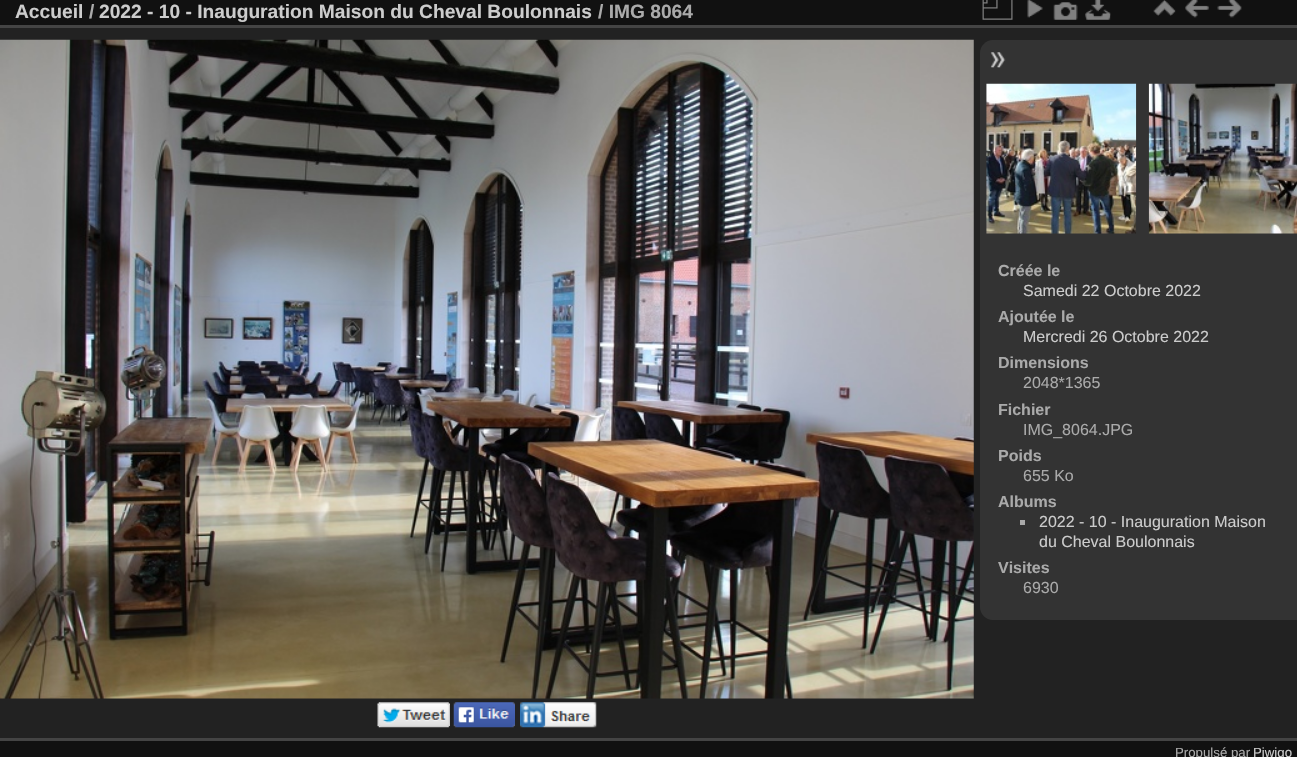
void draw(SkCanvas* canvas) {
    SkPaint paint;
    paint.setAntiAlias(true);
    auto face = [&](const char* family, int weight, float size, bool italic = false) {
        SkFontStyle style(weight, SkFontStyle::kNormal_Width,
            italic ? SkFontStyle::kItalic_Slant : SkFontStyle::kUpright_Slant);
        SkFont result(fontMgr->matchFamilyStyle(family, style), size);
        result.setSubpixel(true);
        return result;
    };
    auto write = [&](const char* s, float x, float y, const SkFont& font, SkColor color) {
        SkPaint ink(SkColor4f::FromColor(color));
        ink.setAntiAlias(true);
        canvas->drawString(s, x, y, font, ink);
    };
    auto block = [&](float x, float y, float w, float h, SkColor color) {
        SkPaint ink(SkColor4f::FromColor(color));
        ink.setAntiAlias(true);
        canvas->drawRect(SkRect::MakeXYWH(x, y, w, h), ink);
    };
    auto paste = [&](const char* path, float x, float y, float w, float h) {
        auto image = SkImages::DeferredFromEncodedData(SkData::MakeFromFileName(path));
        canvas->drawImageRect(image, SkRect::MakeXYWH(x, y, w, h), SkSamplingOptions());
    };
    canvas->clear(SkColorSetRGB(17, 17, 17));
    block(0, 28, 1297, 710, SkColorSetRGB(34, 34, 34));
    block(0, 738, 1297, 3, SkColorSetRGB(68, 68, 68));
    block(0, 25, 1297, 3, SkColorSetRGB(68, 68, 68));
    auto kFont1 = face("Liberation Sans", 700, 19.2f);
    write("Accueil", 15, 18, kFont1, SkColorSetRGB(204, 204, 204));
    write("/", 89, 18, kFont1, SkColorSetRGB(170, 170, 170));
    write("2022 - 10 - Inauguration Maison du Cheval Boulonnais", 99, 18, kFont1, SkColorSetRGB(204, 204, 204));
    write("/ IMG 8064", 598, 18, kFont1, SkColorSetRGB(170, 170, 170));
    paste("pic1.png", 982, 0, 31, 20);
    paste("pic2.png", 1027, 0, 16, 18);
    paste("pic3.png", 1053, 2, 25, 18);
    paste("pic4.png", 1085, 0, 26, 20);
    paste("pic5.png", 1153, 0, 23, 16);
    paste("pic6.png", 1185, 0, 24, 18);
    paste("pic7.png", 1217, 0, 25, 18);
    paste("pic8.png", 0, 39, 974, 660);
    paste("pic9.png", 377, 702, 73, 26);
    paste("pic10.png", 453, 702, 62, 26);
    paste("pic11.png", 520, 702, 77, 26);
    paint.setColor(SkColorSetRGB(51, 51, 51));
    canvas->drawPath(SkPathBuilder().moveTo(993, 40).lineTo(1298, 40).lineTo(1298, 620).lineTo(993, 620).cubicTo(986, 620, 980, 614, 980, 607).lineTo(980, 53).cubicTo(980, 46, 986, 40, 993, 40).close().detach(), paint);
    paste("pic12.png", 990, 52, 16, 16);
    paste("pic13.png", 986, 83, 151, 151);
    paste("pic14.png", 1148, 83, 149, 151);
    auto kFont2 = face("Liberation Sans", 700, 16);
    write("Créée le", 998, 276, kFont2, SkColorSetRGB(170, 170, 170));
    auto kFont3 = face("Liberation Sans", 400, 16);
    write("Samedi 22 Octobre 2022", 1023, 296, kFont3, SkColorSetRGB(204, 204, 204));
    write("Ajoutée le", 998, 322, kFont2, SkColorSetRGB(170, 170, 170));
    write("Mercredi 26 Octobre 2022", 1023, 342, kFont3, SkColorSetRGB(204, 204, 204));
    write("Dimensions", 998, 368, kFont2, SkColorSetRGB(170, 170, 170));
    write("2048*1365", 1023, 388, kFont3, SkColorSetRGB(170, 170, 170));
    write("Fichier", 998, 415, kFont2, SkColorSetRGB(170, 170, 170));
    write("IMG_8064.JPG", 1023, 435, kFont3, SkColorSetRGB(170, 170, 170));
    write("Poids", 998, 461, kFont2, SkColorSetRGB(170, 170, 170));
    write("655 Ko", 1023, 481, kFont3, SkColorSetRGB(170, 170, 170));
    write("Albums", 998, 507, kFont2, SkColorSetRGB(170, 170, 170));
    block(1020, 520, 5, 5, SkColorSetRGB(170, 170, 170));
    write("2022 - 10 - Inauguration Maison", 1039, 527, kFont3, SkColorSetRGB(204, 204, 204));
    write("du Cheval Boulonnais", 1039, 547, kFont3, SkColorSetRGB(204, 204, 204));
    write("Visites", 998, 573, kFont2, SkColorSetRGB(170, 170, 170));
    write("6930", 1023, 593, kFont3, SkColorSetRGB(170, 170, 170));
    auto kFont4 = face("Liberation Sans", 400, 13.25f);
    write("Propulsé par", 1175, 757, kFont4, SkColorSetRGB(170, 170, 170));
    write("Piwigo", 1253, 757, kFont4, SkColorSetRGB(204, 204, 204));
}
